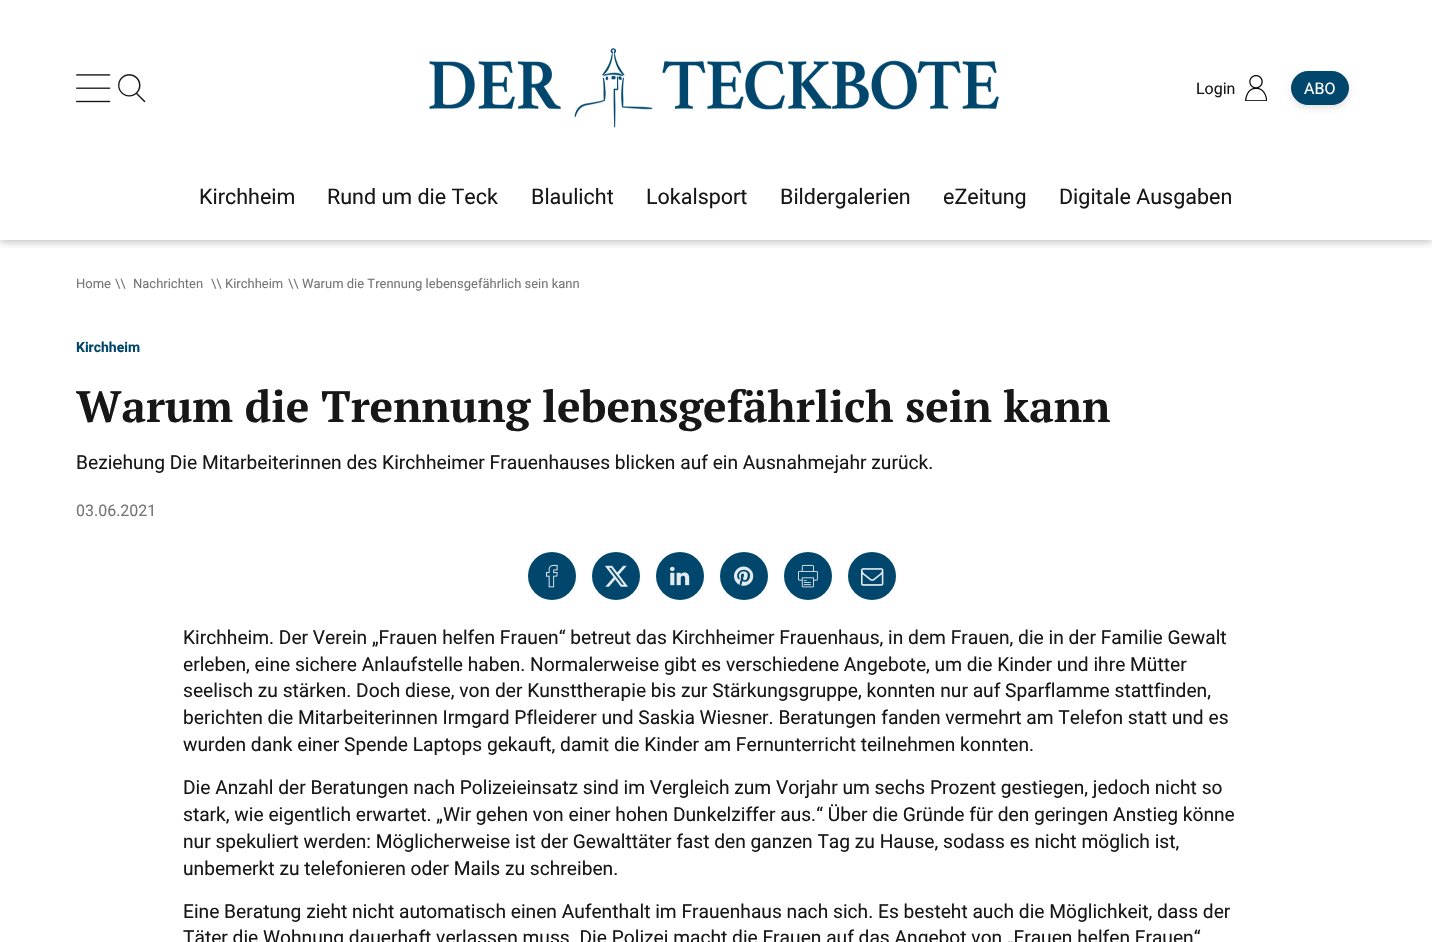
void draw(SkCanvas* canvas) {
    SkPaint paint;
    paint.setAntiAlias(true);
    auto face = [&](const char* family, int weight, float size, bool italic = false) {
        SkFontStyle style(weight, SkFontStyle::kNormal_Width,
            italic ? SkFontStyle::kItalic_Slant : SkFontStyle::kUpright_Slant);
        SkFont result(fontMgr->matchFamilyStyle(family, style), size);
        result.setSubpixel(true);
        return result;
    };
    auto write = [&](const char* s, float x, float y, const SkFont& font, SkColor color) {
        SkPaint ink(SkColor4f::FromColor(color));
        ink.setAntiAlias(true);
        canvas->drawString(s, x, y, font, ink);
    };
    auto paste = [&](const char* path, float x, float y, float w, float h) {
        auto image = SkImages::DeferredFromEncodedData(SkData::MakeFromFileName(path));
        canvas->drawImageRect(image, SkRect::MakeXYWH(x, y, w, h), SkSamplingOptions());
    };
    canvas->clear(SK_ColorWHITE);
    canvas->save();
    canvas->clipRect(SkRect::MakeXYWH(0, 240, 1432, 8));
    paint.setColor(SkColorSetARGB(64, 0, 0, 0));
    paint.setMaskFilter(SkMaskFilter::MakeBlur(kNormal_SkBlurStyle, 4));
    canvas->drawRect(SkRect::MakeXYWH(0, 2, 1432, 240), paint);
    paint.setMaskFilter(nullptr);
    canvas->restore();
    paste("pic1.png", 76, 74, 35, 29);
    paste("pic2.png", 118, 74, 28, 29);
    paste("pic3.png", 429, 47, 570, 81);
    paste("pic4.png", 1245, 75, 22, 26);
    auto kFont1 = face("Roboto", 400, 16);
    write("Login", 1196, 94, kFont1, SkColorSetRGB(23, 23, 23));
    paint.setColor(SkColorSetARGB(28, 0, 0, 0));
    paint.setMaskFilter(SkMaskFilter::MakeBlur(kNormal_SkBlurStyle, 3));
    canvas->drawRoundRect(SkRect::MakeXYWH(1291, 74, 58, 34), 17, 17, paint);
    paint.setMaskFilter(nullptr);
    paint.setColor(SkColorSetRGB(1, 71, 109));
    canvas->drawRoundRect(SkRect::MakeXYWH(1291.5f, 71.5f, 57, 33), 16.5f, 16.5f, paint);
    paint.setStyle(SkPaint::kStroke_Style);
    paint.setStrokeWidth(1);
    canvas->drawRoundRect(SkRect::MakeXYWH(1291.5f, 71.5f, 57, 33), 16.5f, 16.5f, paint);
    write("ABO", 1304, 94, kFont1, SK_ColorWHITE);
    auto kFont2 = face("Roboto", 400, 21.5f);
    write("Kirchheim", 199, 204, kFont2, SkColorSetRGB(23, 23, 23));
    write("Rund um die Teck", 327, 204, kFont2, SkColorSetRGB(23, 23, 23));
    write("Blaulicht", 531, 204, kFont2, SkColorSetRGB(23, 23, 23));
    write("Lokalsport", 646, 204, kFont2, SkColorSetRGB(23, 23, 23));
    write("Bildergalerien", 780, 204, kFont2, SkColorSetRGB(23, 23, 23));
    write("eZeitung", 943, 204, kFont2, SkColorSetRGB(23, 23, 23));
    write("Digitale Ausgaben", 1059, 204, kFont2, SkColorSetRGB(23, 23, 23));
    auto kFont3 = face("Roboto", 400, 13);
    write("Home", 76, 288, kFont3, SkColorSetRGB(117, 117, 117));
    write("\\\\", 115, 288, kFont3, SkColorSetRGB(117, 117, 117));
    write("Nachrichten", 133, 288, kFont3, SkColorSetRGB(117, 117, 117));
    write("\\\\", 211, 288, kFont3, SkColorSetRGB(117, 117, 117));
    write("Kirchheim", 225, 288, kFont3, SkColorSetRGB(117, 117, 117));
    write("\\\\", 288, 288, kFont3, SkColorSetRGB(117, 117, 117));
    write("Warum die Trennung lebensgefährlich sein kann", 302, 288, kFont3, SkColorSetRGB(117, 117, 117));
    auto kFont4 = face("Roboto", 700, 14);
    write("Kirchheim", 76, 352, kFont4, SkColorSetRGB(1, 71, 109));
    auto kFont5 = face("PT Serif", 700, 44);
    write("Warum die Trennung lebensgefährlich sein kann", 76, 422, kFont5, SkColorSetRGB(23, 23, 23));
    auto kFont6 = face("Roboto", 400, 19.2f);
    write("Beziehung Die Mitarbeiterinnen des Kirchheimer Frauenhauses blicken auf ein Ausnahmejahr zurück.", 76, 469, kFont6, SkColorSetRGB(23, 23, 23));
    write("03.06.2021", 76, 516, kFont1, SkColorSetRGB(117, 117, 117));
    paint.setStyle(SkPaint::kFill_Style);
    canvas->drawCircle(552, 576, 24, paint);
    paste("pic5.png", 546, 564, 12, 24);
    canvas->drawCircle(616, 576, 24, paint);
    paste("pic6.png", 605, 565, 23, 22);
    canvas->drawCircle(680, 576, 24, paint);
    paste("pic7.png", 670, 566, 20, 20);
    canvas->drawCircle(744, 576, 24, paint);
    paste("pic8.png", 734, 566, 20, 20);
    canvas->drawCircle(808, 576, 24, paint);
    paste("pic9.png", 798, 564, 20, 24);
    canvas->drawCircle(872, 576, 24, paint);
    paste("pic10.png", 861, 568, 23, 18);
    write("Kirchheim. Der Verein „Frauen helfen Frauen“ betreut das Kirchheimer Frauenhaus, in dem Frauen, die in der Familie Gewalt", 183, 644, kFont6, SkColorSetRGB(23, 23, 23));
    write("erleben, eine sichere Anlaufstelle haben. Normalerweise gibt es verschiedene Angebote, um die Kinder und ihre Mütter", 183, 671, kFont6, SkColorSetRGB(23, 23, 23));
    write("seelisch zu stärken. Doch diese, von der Kunsttherapie bis zur Stärkungsgruppe, konnten nur auf Sparflamme stattfinden,", 183, 697, kFont6, SkColorSetRGB(23, 23, 23));
    write("berichten die Mitarbeiterinnen Irmgard Pfleiderer und Saskia Wiesner. Beratungen fanden vermehrt am Telefon statt und es", 183, 724, kFont6, SkColorSetRGB(23, 23, 23));
    write("wurden dank einer Spende Laptops gekauft, damit die Kinder am Fernunterricht teilnehmen konnten.", 183, 751, kFont6, SkColorSetRGB(23, 23, 23));
    write("Die Anzahl der Beratungen nach Polizeieinsatz sind im Vergleich zum Vorjahr um sechs Prozent gestiegen, jedoch nicht so", 183, 794, kFont6, SkColorSetRGB(23, 23, 23));
    write("stark, wie eigentlich erwartet. „Wir gehen von einer hohen Dunkelziffer aus.“ Über die Gründe für den geringen Anstieg könne", 183, 821, kFont6, SkColorSetRGB(23, 23, 23));
    write("nur spekuliert werden: Möglicherweise ist der Gewalttäter fast den ganzen Tag zu Hause, sodass es nicht möglich ist,", 183, 848, kFont6, SkColorSetRGB(23, 23, 23));
    write("unbemerkt zu telefonieren oder Mails zu schreiben.", 183, 875, kFont6, SkColorSetRGB(23, 23, 23));
    write("Eine Beratung zieht nicht automatisch einen Aufenthalt im Frauenhaus nach sich. Es besteht auch die Möglichkeit, dass der", 183, 918, kFont6, SkColorSetRGB(23, 23, 23));
    write("Täter die Wohnung dauerhaft verlassen muss. Die Polizei macht die Frauen auf das Angebot von „Frauen helfen Frauen“", 183, 944, kFont6, SkColorSetRGB(23, 23, 23));
}
